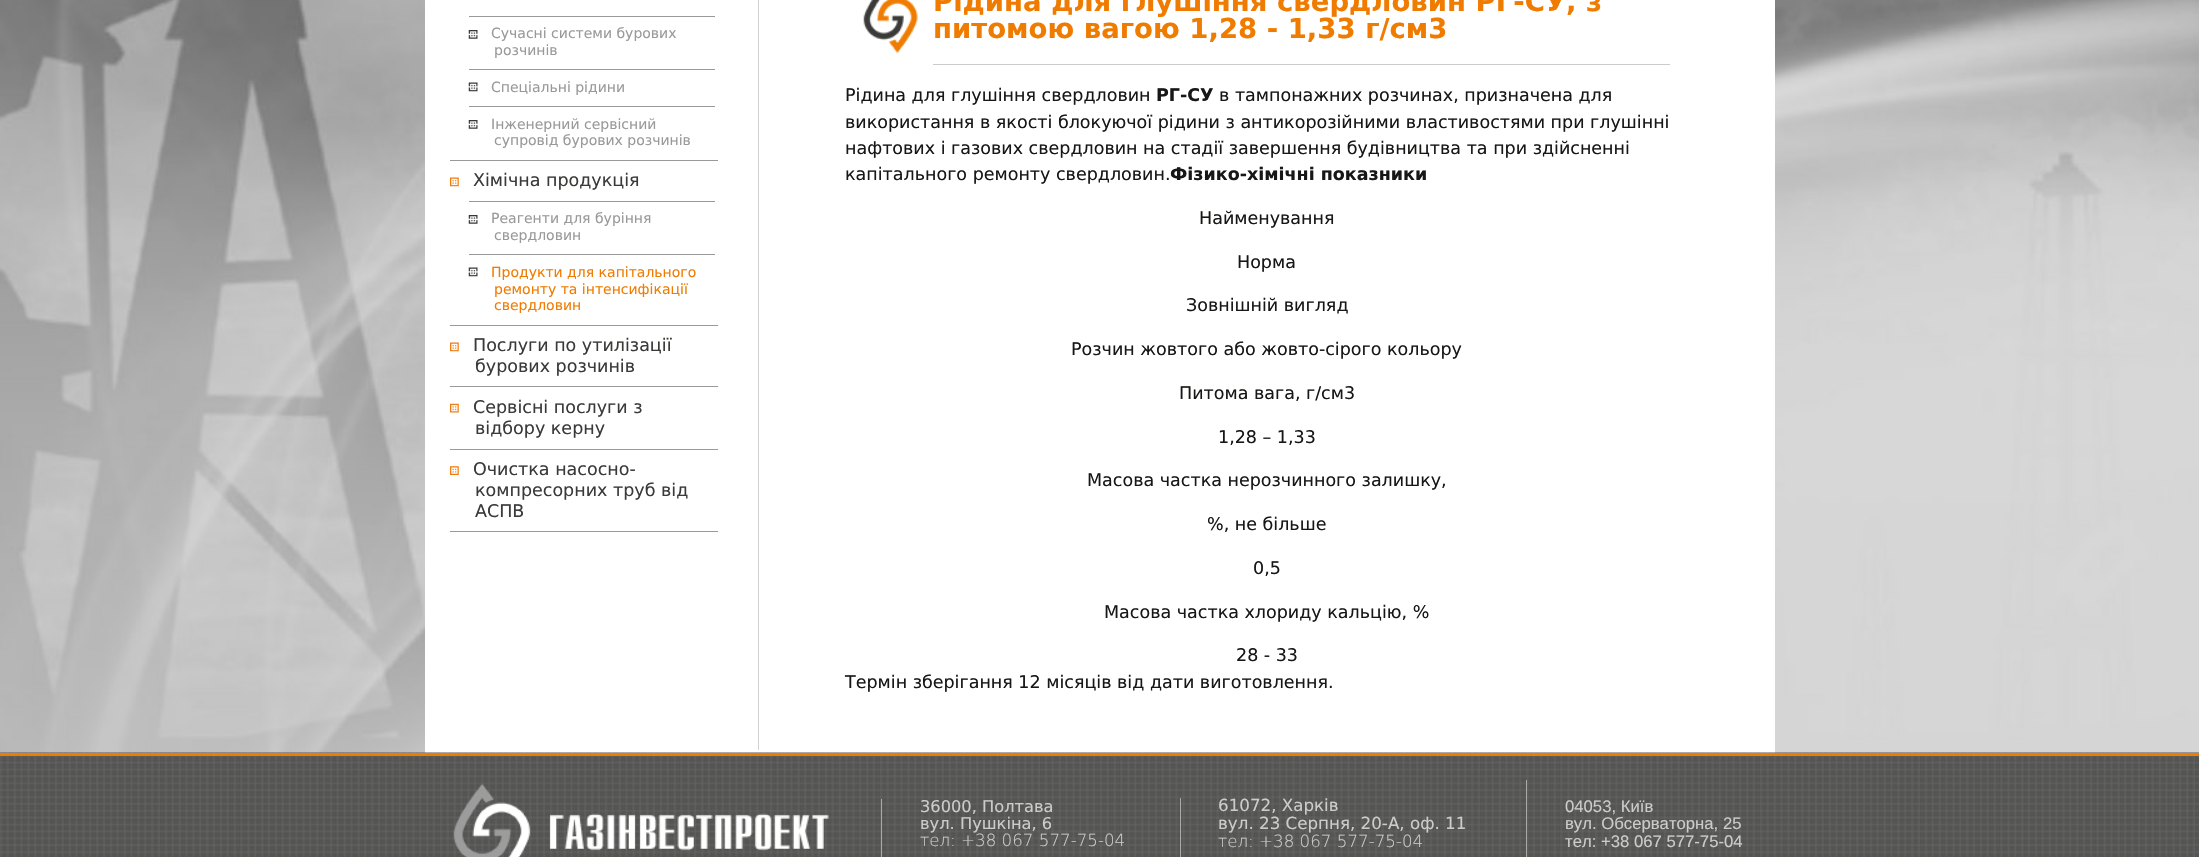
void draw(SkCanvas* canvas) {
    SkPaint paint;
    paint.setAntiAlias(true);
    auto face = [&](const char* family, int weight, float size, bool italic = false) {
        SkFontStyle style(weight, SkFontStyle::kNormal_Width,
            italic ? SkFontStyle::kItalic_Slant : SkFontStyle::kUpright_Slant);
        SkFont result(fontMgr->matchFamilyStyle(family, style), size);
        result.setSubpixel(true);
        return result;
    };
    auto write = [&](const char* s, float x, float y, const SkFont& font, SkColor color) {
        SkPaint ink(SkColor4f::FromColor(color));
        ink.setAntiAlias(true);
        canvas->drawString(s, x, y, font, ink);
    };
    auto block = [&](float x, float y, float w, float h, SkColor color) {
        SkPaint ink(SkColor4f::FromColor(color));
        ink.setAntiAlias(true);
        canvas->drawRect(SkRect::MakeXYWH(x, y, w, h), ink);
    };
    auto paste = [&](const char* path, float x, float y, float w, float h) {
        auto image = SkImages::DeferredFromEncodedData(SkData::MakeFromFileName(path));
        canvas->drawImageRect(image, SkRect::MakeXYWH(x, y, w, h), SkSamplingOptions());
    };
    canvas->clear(SK_ColorWHITE);
    paste("pic1.png", 0, 0, 2199, 753);
    block(425, 0, 1350, 753, SK_ColorWHITE);
    block(758, 0, 1, 750, SkColorSetRGB(209, 209, 209));
    block(469, 16, 246, 1, SkColorSetRGB(153, 153, 153));
    paste("pic2.png", 468, 30, 10, 9);
    auto kFont1 = face("DejaVu Sans", 400, 14);
    write("Сучасні системи бурових", 491, 38, kFont1, SkColorSetRGB(153, 153, 153));
    write("розчинів", 494, 55, kFont1, SkColorSetRGB(153, 153, 153));
    block(469, 69, 246, 1, SkColorSetRGB(153, 153, 153));
    paste("pic3.png", 468, 82, 10, 10);
    write("Спеціальні рідини", 491, 92, kFont1, SkColorSetRGB(153, 153, 153));
    block(469, 106, 246, 1, SkColorSetRGB(153, 153, 153));
    paste("pic2.png", 468, 120, 10, 9);
    write("Інженерний сервісний", 491, 129, kFont1, SkColorSetRGB(153, 153, 153));
    write("супровід бурових розчинів", 494, 145, kFont1, SkColorSetRGB(153, 153, 153));
    block(450, 160, 268, 1, SkColorSetRGB(153, 153, 153));
    paste("pic4.png", 450, 177, 9, 10);
    auto kFont2 = face("DejaVu Sans", 400, 17.5f);
    write("Хімічна продукція", 473, 186, kFont2, SkColorSetRGB(58, 58, 57));
    block(469, 201, 246, 1, SkColorSetRGB(153, 153, 153));
    paste("pic2.png", 468, 215, 10, 9);
    write("Реагенти для буріння", 491, 223, kFont1, SkColorSetRGB(153, 153, 153));
    write("свердловин", 494, 240, kFont1, SkColorSetRGB(153, 153, 153));
    block(469, 254, 246, 1, SkColorSetRGB(153, 153, 153));
    paste("pic3.png", 468, 267, 10, 10);
    write("Продукти для капітального", 491, 277, kFont1, SkColorSetRGB(239, 124, 0));
    write("ремонту та інтенсифікації", 494, 294, kFont1, SkColorSetRGB(239, 124, 0));
    write("свердловин", 494, 310, kFont1, SkColorSetRGB(239, 124, 0));
    block(450, 325, 268, 1, SkColorSetRGB(153, 153, 153));
    paste("pic4.png", 450, 342, 9, 10);
    write("Послуги по утилізації", 473, 351, kFont2, SkColorSetRGB(58, 58, 57));
    write("бурових розчинів", 475, 372, kFont2, SkColorSetRGB(58, 58, 57));
    block(450, 386, 268, 1, SkColorSetRGB(153, 153, 153));
    paste("pic5.png", 450, 403, 9, 10);
    write("Сервісні послуги з", 473, 413, kFont2, SkColorSetRGB(58, 58, 57));
    write("відбору керну", 475, 434, kFont2, SkColorSetRGB(58, 58, 57));
    block(450, 449, 268, 1, SkColorSetRGB(153, 153, 153));
    paste("pic6.png", 450, 466, 9, 9);
    write("Очистка насосно-", 473, 475, kFont2, SkColorSetRGB(58, 58, 57));
    write("компресорних труб від", 475, 496, kFont2, SkColorSetRGB(58, 58, 57));
    write("АСПВ", 475, 517, kFont2, SkColorSetRGB(58, 58, 57));
    block(450, 531, 268, 1, SkColorSetRGB(153, 153, 153));
    paste("pic7.png", 863, 0, 55, 53);
    block(933, 64, 737, 1, SkColorSetRGB(204, 204, 204));
    auto kFont3 = face("DejaVu Sans", 700, 27.5f);
    write("Рідина для глушіння свердловин РГ-СУ, з", 933, 11, kFont3, SkColorSetRGB(239, 124, 0));
    write("питомою вагою 1,28 - 1,33 г/см3", 933, 38, kFont3, SkColorSetRGB(239, 124, 0));
    write("Рідина для глушіння свердловин", 845, 101, kFont2, SkColorSetRGB(24, 23, 22));
    auto kFont4 = face("DejaVu Sans", 700, 17.5f);
    write("РГ-СУ", 1156, 101, kFont4, SkColorSetRGB(24, 23, 22));
    write("в тампонажних розчинах, призначена для", 1219, 101, kFont2, SkColorSetRGB(24, 23, 22));
    write("використання в якості блокуючої рідини з антикорозійними властивостями при глушінні", 845, 128, kFont2, SkColorSetRGB(24, 23, 22));
    write("нафтових і газових свердловин на стадії завершення будівництва та при здійсненні", 845, 154, kFont2, SkColorSetRGB(24, 23, 22));
    write("капітального ремонту свердловин.", 845, 180, kFont2, SkColorSetRGB(24, 23, 22));
    write("Фізико-хімічні показники", 1170, 180, kFont4, SkColorSetRGB(24, 23, 22));
    write("Найменування", 1199, 224, kFont2, SkColorSetRGB(24, 23, 22));
    write("Норма", 1237, 268, kFont2, SkColorSetRGB(24, 23, 22));
    write("Зовнішній вигляд", 1186, 311, kFont2, SkColorSetRGB(24, 23, 22));
    write("Розчин жовтого або жовто-сірого кольору", 1071, 355, kFont2, SkColorSetRGB(24, 23, 22));
    write("Питома вага, г/см3", 1179, 399, kFont2, SkColorSetRGB(24, 23, 22));
    write("1,28 – 1,33", 1218, 443, kFont2, SkColorSetRGB(24, 23, 22));
    write("Масова частка нерозчинного залишку,", 1087, 486, kFont2, SkColorSetRGB(24, 23, 22));
    write("%, не більше", 1207, 530, kFont2, SkColorSetRGB(24, 23, 22));
    write("0,5", 1253, 574, kFont2, SkColorSetRGB(24, 23, 22));
    write("Масова частка хлориду кальцію, %", 1104, 618, kFont2, SkColorSetRGB(24, 23, 22));
    write("28 - 33", 1236, 661, kFont2, SkColorSetRGB(24, 23, 22));
    write("Термін зберігання 12 місяців від дати виготовлення.", 845, 688, kFont2, SkColorSetRGB(24, 23, 22));
    paste("pic8.png", 0, 752, 2199, 105);
    block(0, 753, 2199, 3, SkColorSetRGB(239, 124, 0));
    paste("pic9.png", 453, 783, 376, 74);
    block(881, 799, 1, 58, SkColorSetRGB(170, 170, 170));
    auto kFont5 = face("DejaVu Sans", 400, 16.25f);
    write("36000, Полтава", 920, 812, kFont5, SkColorSetRGB(204, 204, 204));
    write("вул. Пушкіна, 6", 920, 829, kFont5, SkColorSetRGB(204, 204, 204));
    auto kFont6 = face("DejaVu Sans", 200, 16.7f);
    write("тел: +38 067 577-75-04", 920, 846, kFont6, SkColorSetRGB(204, 204, 204));
    block(1180, 798, 1, 59, SkColorSetRGB(170, 170, 170));
    auto kFont7 = face("DejaVu Sans", 400, 16.7f);
    write("61072, Харків", 1218, 811, kFont7, SkColorSetRGB(204, 204, 204));
    write("вул. 23 Серпня, 20-А, оф. 11", 1218, 829, kFont7, SkColorSetRGB(204, 204, 204));
    write("тел: +38 067 577-75-04", 1218, 847, kFont6, SkColorSetRGB(204, 204, 204));
    block(1526, 780, 1, 77, SkColorSetRGB(170, 170, 170));
    auto kFont8 = face("Liberation Sans", 400, 16.7f);
    write("04053, Київ", 1565, 812, kFont8, SkColorSetRGB(204, 204, 204));
    write("вул. Обсерваторна, 25", 1565, 829, kFont8, SkColorSetRGB(204, 204, 204));
    write("тел: +38 067 577-75-04", 1565, 847, kFont8, SkColorSetRGB(204, 204, 204));
}
